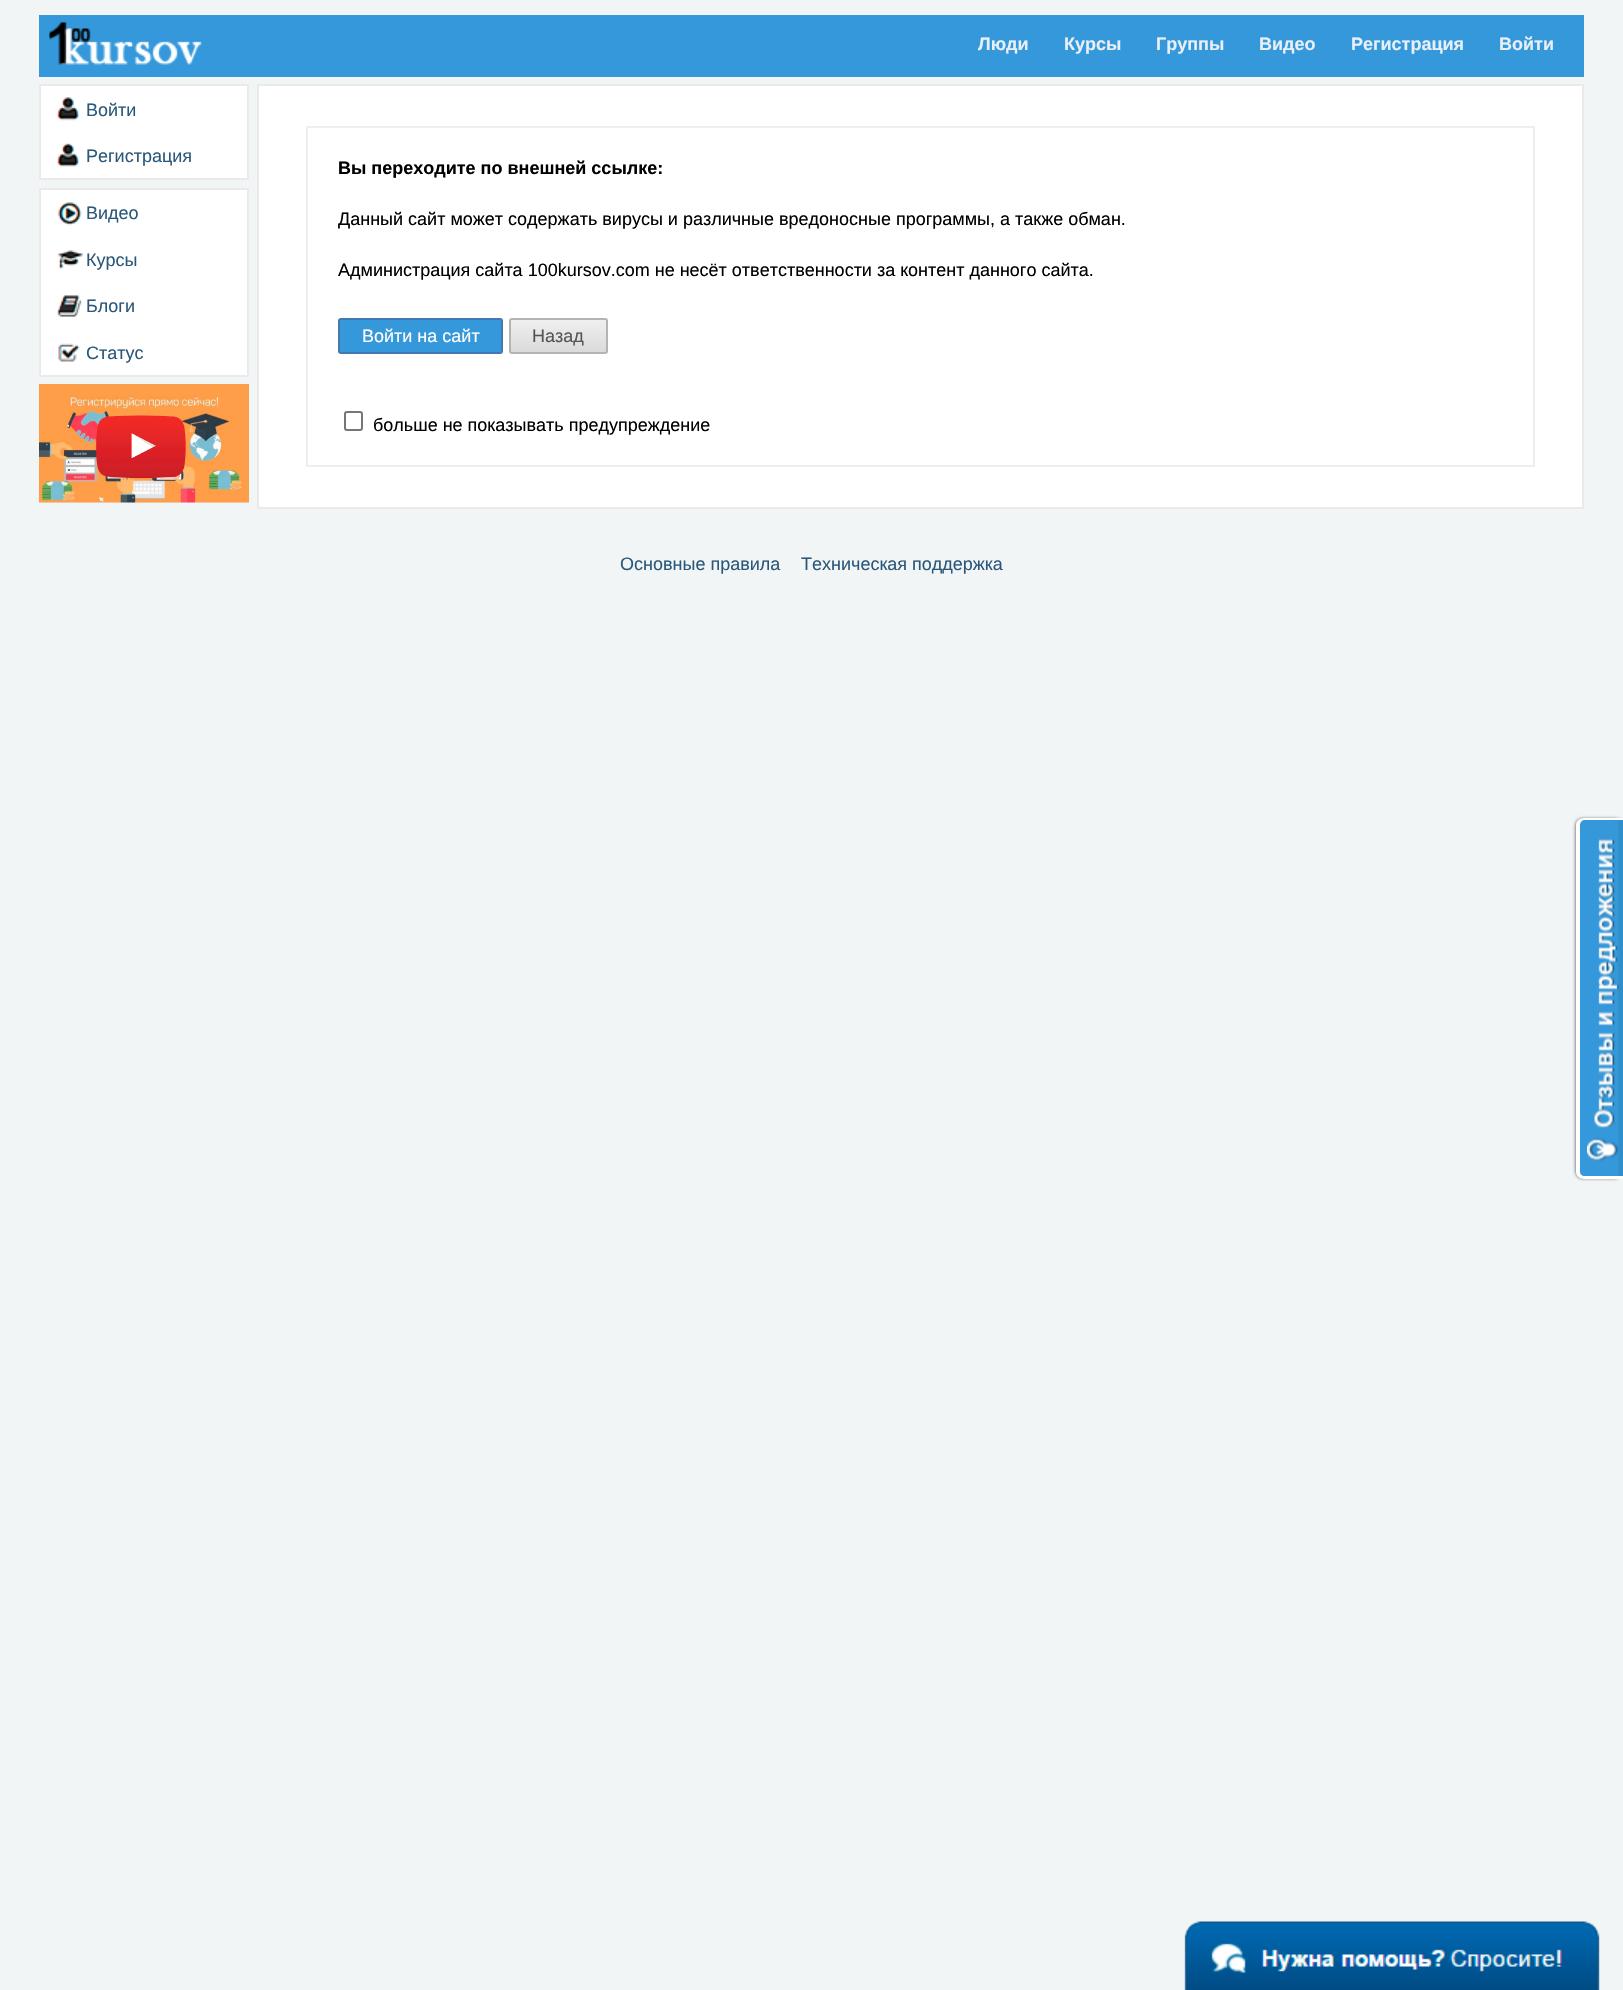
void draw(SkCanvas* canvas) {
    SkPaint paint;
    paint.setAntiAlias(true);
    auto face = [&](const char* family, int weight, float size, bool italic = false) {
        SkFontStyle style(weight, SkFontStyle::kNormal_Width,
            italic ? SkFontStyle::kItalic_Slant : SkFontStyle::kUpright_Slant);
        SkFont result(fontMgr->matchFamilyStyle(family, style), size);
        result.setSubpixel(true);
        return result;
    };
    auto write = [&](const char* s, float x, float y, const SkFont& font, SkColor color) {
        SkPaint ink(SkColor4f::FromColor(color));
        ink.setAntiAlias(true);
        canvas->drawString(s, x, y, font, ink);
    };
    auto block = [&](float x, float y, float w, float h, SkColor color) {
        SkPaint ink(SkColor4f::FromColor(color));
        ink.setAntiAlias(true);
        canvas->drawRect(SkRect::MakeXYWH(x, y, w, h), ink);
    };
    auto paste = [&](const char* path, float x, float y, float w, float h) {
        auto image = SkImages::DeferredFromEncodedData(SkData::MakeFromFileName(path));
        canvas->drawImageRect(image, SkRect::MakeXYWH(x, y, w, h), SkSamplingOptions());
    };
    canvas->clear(SkColorSetRGB(242, 245, 246));
    block(39, 15, 1545, 62, SkColorSetRGB(52, 152, 219));
    paste("pic1.png", 49, 22, 153, 43);
    auto kFont1 = face("Liberation Sans", 700, 18);
    write("Люди", 978, 50, kFont1, SkColorSetRGB(232, 239, 247));
    write("Курсы", 1064, 50, kFont1, SkColorSetRGB(232, 239, 247));
    write("Группы", 1156, 50, kFont1, SkColorSetRGB(232, 239, 247));
    write("Видео", 1259, 50, kFont1, SkColorSetRGB(232, 239, 247));
    write("Регистрация", 1351, 50, kFont1, SkColorSetRGB(232, 239, 247));
    write("Войти", 1499, 50, kFont1, SkColorSetRGB(232, 239, 247));
    paint.setColor(SK_ColorWHITE);
    canvas->drawRect(SkRect::MakeXYWH(40, 85, 208, 94), paint);
    paint.setStyle(SkPaint::kStroke_Style);
    paint.setStrokeWidth(2);
    paint.setColor(SkColorSetRGB(234, 234, 234));
    canvas->drawRect(SkRect::MakeXYWH(40, 85, 208, 94), paint);
    paste("pic2.png", 57, 97, 23, 24);
    auto kFont2 = face("Liberation Sans", 400, 18);
    write("Войти", 86, 116, kFont2, SkColorSetRGB(43, 88, 122));
    paste("pic3.png", 57, 143, 23, 24);
    write("Регистрация", 86, 162, kFont2, SkColorSetRGB(43, 88, 122));
    paint.setStyle(SkPaint::kFill_Style);
    paint.setColor(SK_ColorWHITE);
    canvas->drawRect(SkRect::MakeXYWH(40, 189, 208, 187), paint);
    paint.setStyle(SkPaint::kStroke_Style);
    paint.setColor(SkColorSetRGB(234, 234, 234));
    canvas->drawRect(SkRect::MakeXYWH(40, 189, 208, 187), paint);
    paste("pic4.png", 58, 202, 24, 24);
    write("Видео", 86, 219, kFont2, SkColorSetRGB(43, 88, 122));
    paste("pic5.png", 57, 250, 27, 19);
    write("Курсы", 86, 266, kFont2, SkColorSetRGB(43, 88, 122));
    paste("pic6.png", 57, 295, 25, 22);
    write("Блоги", 86, 312, kFont2, SkColorSetRGB(43, 88, 122));
    paste("pic7.png", 58, 343, 22, 19);
    write("Статус", 86, 359, kFont2, SkColorSetRGB(43, 88, 122));
    paste("pic8.png", 39, 384, 210, 119);
    paint.setStyle(SkPaint::kFill_Style);
    paint.setColor(SK_ColorWHITE);
    canvas->drawRect(SkRect::MakeXYWH(258, 85, 1325, 423), paint);
    paint.setStyle(SkPaint::kStroke_Style);
    paint.setColor(SkColorSetRGB(234, 234, 234));
    canvas->drawRect(SkRect::MakeXYWH(258, 85, 1325, 423), paint);
    paint.setColor(SkColorSetRGB(238, 238, 238));
    canvas->drawRect(SkRect::MakeXYWH(307, 127, 1227, 339), paint);
    write("Вы переходите по внешней ссылке:", 338, 174, kFont1, SK_ColorBLACK);
    write("Данный сайт может содержать вирусы и различные вредоносные программы, а также обман.", 338, 225, kFont2, SK_ColorBLACK);
    write("Администрация сайта 100kursov.com не несёт ответственности за контент данного сайта.", 338, 276, kFont2, SK_ColorBLACK);
    paint.setStyle(SkPaint::kFill_Style);
    paint.setColor(SkColorSetRGB(52, 152, 219));
    canvas->drawRoundRect(SkRect::MakeXYWH(339, 319, 163, 34), 2, 2, paint);
    paint.setStyle(SkPaint::kStroke_Style);
    paint.setColor(SkColorSetRGB(68, 121, 175));
    canvas->drawRoundRect(SkRect::MakeXYWH(339, 319, 163, 34), 2, 2, paint);
    write("Войти на сайт", 362, 342, kFont2, SK_ColorWHITE);
    canvas->save();
    canvas->clipPath(SkPathBuilder().moveTo(512, 318).lineTo(605, 318).cubicTo(606.5f, 318, 608, 319.5f, 608, 321).lineTo(608, 351).cubicTo(608, 352.5f, 606.5f, 354, 605, 354).lineTo(512, 354).cubicTo(510.5f, 354, 509, 352.5f, 509, 351).lineTo(509, 321).cubicTo(509, 319.5f, 510.5f, 318, 512, 318).close().detach(), true);
    paint.setStyle(SkPaint::kFill_Style);
    {
        const SkColor colors[] = {SkColorSetRGB(218, 218, 218), SkColorSetRGB(239, 239, 239)};
        const float stops[] = {0, 1};
        const SkPoint ends[] = {{558, 353}, {558, 320}};
        paint.setShader(SkGradientShader::MakeLinear(ends, colors, stops, 2, SkTileMode::kClamp));
        paint.setAlpha(255);
    }
    canvas->drawRect(SkRect::MakeXYWH(509, 320, 99, 33), paint);
    canvas->restore();
    paint.setStyle(SkPaint::kStroke_Style);
    paint.setShader(nullptr);
    paint.setColor(SkColorSetRGB(180, 180, 180));
    canvas->drawRoundRect(SkRect::MakeXYWH(510, 319, 97, 34), 2, 2, paint);
    write("Назад", 532, 342, kFont2, SkColorSetRGB(85, 85, 85));
    paint.setColor(SkColorSetRGB(118, 118, 118));
    canvas->drawRoundRect(SkRect::MakeXYWH(345, 412, 17, 18), 2, 2, paint);
    write("больше не показывать предупреждение", 373, 431, kFont2, SK_ColorBLACK);
    write("Основные правила", 620, 570, kFont2, SkColorSetRGB(43, 88, 122));
    write("Техническая поддержка", 801, 570, kFont2, SkColorSetRGB(43, 88, 122));
    paint.setStyle(SkPaint::kFill_Style);
    paint.setColor(SkColorSetRGB(136, 136, 136));
    paint.setMaskFilter(SkMaskFilter::MakeBlur(kNormal_SkBlurStyle, 1.5f));
    canvas->drawRoundRect(SkRect::MakeXYWH(1575, 818, 47, 361), 8, 8, paint);
    paint.setMaskFilter(nullptr);
    paint.setColor(SkColorSetRGB(52, 152, 219));
    canvas->drawPath(SkPathBuilder().moveTo(1585, 818).lineTo(1623, 818).lineTo(1623, 1179).lineTo(1585, 1179).cubicTo(1580.5f, 1179, 1577, 1175.5f, 1577, 1171).lineTo(1577, 826).cubicTo(1577, 821.5f, 1580.5f, 818, 1585, 818).close().detach(), paint);
    paste("pic9.png", 1617, 817, 6, 359);
    paint.setColor(SK_ColorWHITE);
    canvas->drawPath(SkPathBuilder(SkPathFillType::kEvenOdd).moveTo(1584, 818).lineTo(1623, 818).lineTo(1623, 1179).lineTo(1584, 1179).cubicTo(1580, 1179, 1576, 1176, 1576, 1172).lineTo(1576, 825).cubicTo(1576, 821, 1580, 818, 1584, 818).close().moveTo(1584, 820).lineTo(1623, 820).lineTo(1623, 1176).lineTo(1584, 1176).cubicTo(1582, 1176, 1580, 1174, 1580, 1172).lineTo(1580, 825).cubicTo(1580, 823, 1582, 820, 1584, 820).close().detach(), paint);
    paste("pic10.png", 1587, 839, 32, 323);
    paste("pic11.png", 1184, 1921, 416, 69);
}
